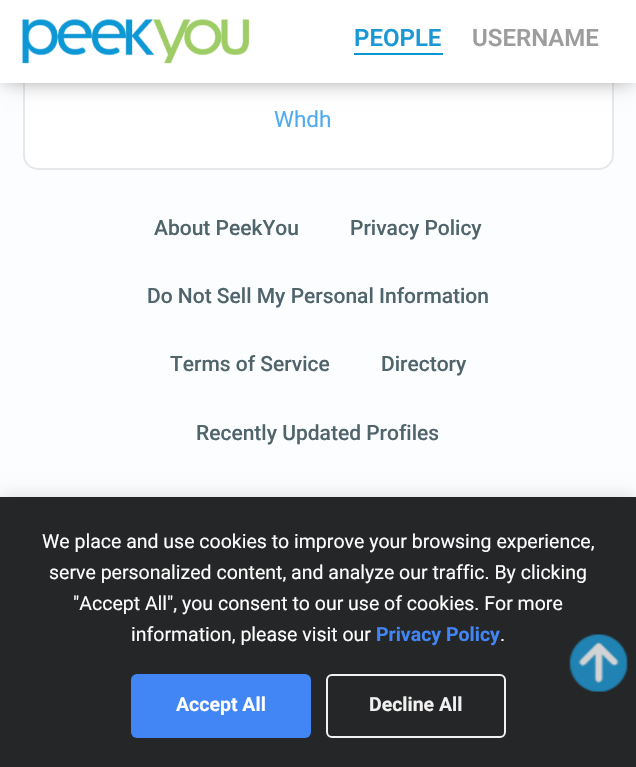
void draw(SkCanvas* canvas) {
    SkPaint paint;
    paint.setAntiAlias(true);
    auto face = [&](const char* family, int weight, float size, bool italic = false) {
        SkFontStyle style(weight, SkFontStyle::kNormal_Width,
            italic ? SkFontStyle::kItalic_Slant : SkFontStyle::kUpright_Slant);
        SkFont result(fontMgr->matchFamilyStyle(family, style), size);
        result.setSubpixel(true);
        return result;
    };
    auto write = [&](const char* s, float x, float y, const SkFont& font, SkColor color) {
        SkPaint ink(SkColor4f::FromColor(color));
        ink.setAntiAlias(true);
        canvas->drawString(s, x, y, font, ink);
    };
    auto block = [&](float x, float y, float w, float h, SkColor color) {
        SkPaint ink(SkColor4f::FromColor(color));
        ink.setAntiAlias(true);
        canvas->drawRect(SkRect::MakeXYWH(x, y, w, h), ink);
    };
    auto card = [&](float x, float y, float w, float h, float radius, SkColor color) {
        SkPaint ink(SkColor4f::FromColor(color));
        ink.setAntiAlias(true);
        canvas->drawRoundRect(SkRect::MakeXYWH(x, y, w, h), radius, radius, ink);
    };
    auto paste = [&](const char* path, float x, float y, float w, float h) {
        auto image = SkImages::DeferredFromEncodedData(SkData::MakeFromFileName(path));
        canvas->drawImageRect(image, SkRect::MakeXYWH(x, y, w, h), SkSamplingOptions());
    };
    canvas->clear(SkColorSetRGB(251, 253, 255));
    paint.setColor(SK_ColorWHITE);
    canvas->drawRoundRect(SkRect::MakeXYWH(24, -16, 589, 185), 14, 14, paint);
    paint.setStyle(SkPaint::kStroke_Style);
    paint.setStrokeWidth(2);
    paint.setColor(SkColorSetRGB(232, 232, 232));
    canvas->drawRoundRect(SkRect::MakeXYWH(24, -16, 589, 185), 14, 14, paint);
    paint.setStyle(SkPaint::kFill_Style);
    paint.setColor(SkColorSetARGB(128, 0, 0, 0));
    paint.setMaskFilter(SkMaskFilter::MakeBlur(kNormal_SkBlurStyle, 11));
    canvas->drawRect(SkRect::MakeXYWH(5, 5, 627, 73), paint);
    paint.setMaskFilter(nullptr);
    block(0, 0, 636, 83, SK_ColorWHITE);
    paste("pic1.png", 22, 19, 227, 45);
    auto kFont1 = face("Roboto", 600, 24);
    write("PEOPLE", 354, 46, kFont1, SkColorSetRGB(26, 152, 213));
    block(354, 53, 89, 2, SkColorSetRGB(12, 151, 212));
    write("USERNAME", 472, 46, kFont1, SkColorSetRGB(157, 157, 157));
    auto kFont2 = face("Roboto", 400, 22.5f);
    write("Whdh", 274, 127, kFont2, SkColorSetRGB(79, 170, 240));
    auto kFont3 = face("Roboto", 500, 21);
    write("About PeekYou", 154, 235, kFont3, SkColorSetRGB(80, 100, 108));
    write("Privacy Policy", 350, 235, kFont3, SkColorSetRGB(80, 100, 108));
    write("Do Not Sell My Personal Information", 147, 303, kFont3, SkColorSetRGB(80, 100, 108));
    write("Terms of Service", 170, 371, kFont3, SkColorSetRGB(80, 100, 108));
    write("Directory", 381, 371, kFont3, SkColorSetRGB(80, 100, 108));
    write("Recently Updated Profiles", 196, 440, kFont3, SkColorSetRGB(80, 100, 108));
    paint.setColor(SkColorSetARGB(26, 0, 0, 0));
    paint.setMaskFilter(SkMaskFilter::MakeBlur(kNormal_SkBlurStyle, 7.5f));
    canvas->drawRect(SkRect::MakeXYWH(0, 494, 636, 271), paint);
    paint.setMaskFilter(nullptr);
    block(0, 497, 636, 270, SkColorSetRGB(37, 38, 39));
    auto kFont4 = face("Roboto", 400, 19.5f);
    write("We place and use cookies to improve your browsing experience,", 42, 548, kFont4, SK_ColorWHITE);
    write("serve personalized content, and analyze our traffic. By clicking", 49, 579, kFont4, SK_ColorWHITE);
    write("\"Accept All\", you consent to our use of cookies. For more", 73, 610, kFont4, SK_ColorWHITE);
    write("information, please visit our", 131, 641, kFont4, SK_ColorWHITE);
    auto kFont5 = face("Roboto", 700, 19.5f);
    write("Privacy Policy", 376, 641, kFont5, SkColorSetRGB(66, 133, 244));
    write(".", 500, 641, kFont4, SK_ColorWHITE);
    card(131, 674, 180, 64, 6, SkColorSetRGB(66, 133, 244));
    write("Accept All", 176, 711, kFont5, SK_ColorWHITE);
    paint.setStyle(SkPaint::kStroke_Style);
    paint.setColor(SkColorSetRGB(241, 241, 241));
    canvas->drawRoundRect(SkRect::MakeXYWH(327, 675, 178, 62), 5, 5, paint);
    write("Decline All", 369, 711, kFont5, SkColorSetRGB(241, 241, 241));
    paste("pic2.png", 569, 634, 59, 58);
}
